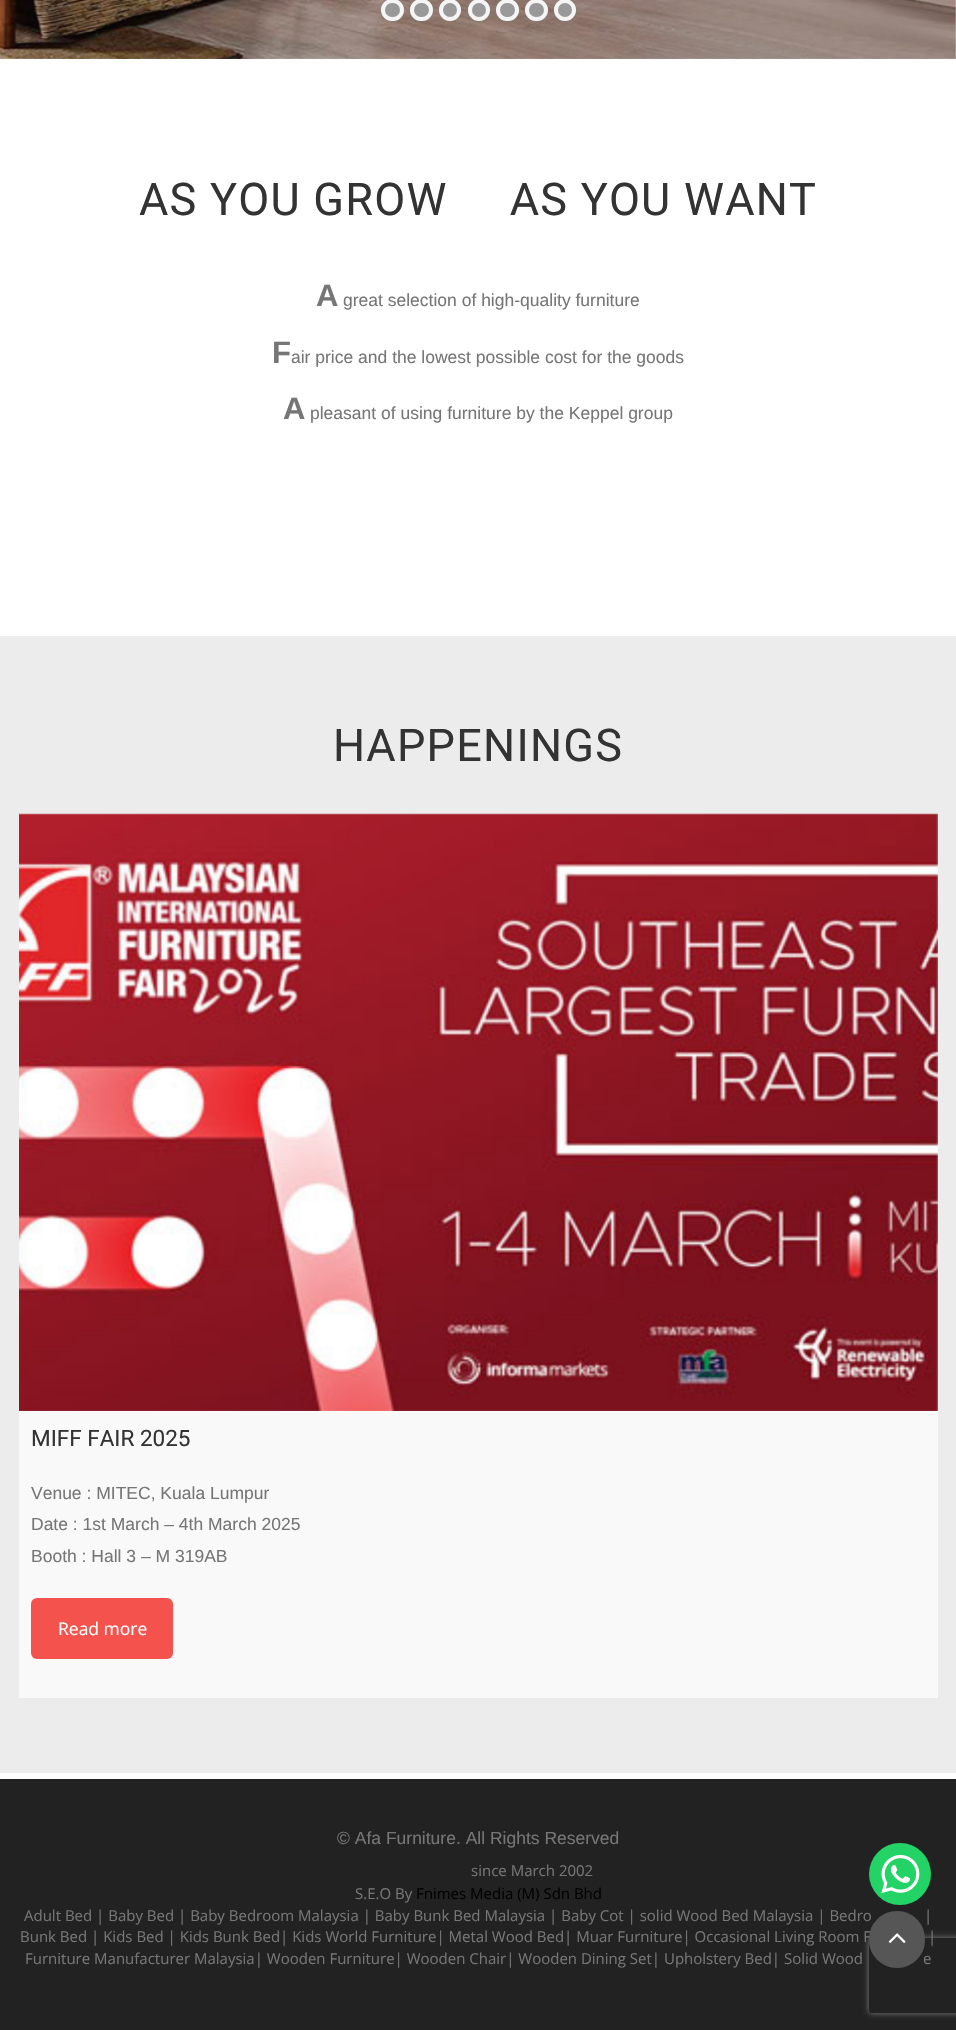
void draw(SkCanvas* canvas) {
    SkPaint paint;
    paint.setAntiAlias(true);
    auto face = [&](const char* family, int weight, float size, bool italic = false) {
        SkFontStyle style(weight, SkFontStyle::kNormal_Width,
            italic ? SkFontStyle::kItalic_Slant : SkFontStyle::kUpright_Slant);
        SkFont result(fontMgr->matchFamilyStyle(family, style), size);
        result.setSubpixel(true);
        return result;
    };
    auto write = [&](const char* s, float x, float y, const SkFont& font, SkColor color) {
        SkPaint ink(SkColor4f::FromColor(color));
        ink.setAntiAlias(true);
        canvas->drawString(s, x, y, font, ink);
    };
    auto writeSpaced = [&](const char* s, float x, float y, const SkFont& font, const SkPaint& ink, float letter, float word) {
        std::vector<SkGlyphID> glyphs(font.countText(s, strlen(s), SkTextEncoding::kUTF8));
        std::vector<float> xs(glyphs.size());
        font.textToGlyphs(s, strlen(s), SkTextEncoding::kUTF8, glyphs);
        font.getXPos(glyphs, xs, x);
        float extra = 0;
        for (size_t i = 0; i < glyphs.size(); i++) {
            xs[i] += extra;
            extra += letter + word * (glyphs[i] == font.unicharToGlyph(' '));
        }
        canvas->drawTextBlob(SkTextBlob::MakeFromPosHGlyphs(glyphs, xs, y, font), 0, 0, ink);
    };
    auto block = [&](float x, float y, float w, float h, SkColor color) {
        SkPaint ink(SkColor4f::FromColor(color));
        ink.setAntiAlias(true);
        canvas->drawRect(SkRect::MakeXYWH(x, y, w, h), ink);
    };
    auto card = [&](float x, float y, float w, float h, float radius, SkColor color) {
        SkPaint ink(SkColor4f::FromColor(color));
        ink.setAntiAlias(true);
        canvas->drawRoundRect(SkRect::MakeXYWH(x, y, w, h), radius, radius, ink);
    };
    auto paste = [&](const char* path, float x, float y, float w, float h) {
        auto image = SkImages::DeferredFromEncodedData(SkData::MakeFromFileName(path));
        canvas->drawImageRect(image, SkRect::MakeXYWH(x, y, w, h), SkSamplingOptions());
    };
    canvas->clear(SK_ColorWHITE);
    paste("pic1.png", 0, 0, 956, 59);
    paint.setColor(SkColorSetARGB(77, 130, 130, 130));
    paint.setMaskFilter(SkMaskFilter::MakeBlur(kNormal_SkBlurStyle, 1));
    canvas->drawRoundRect(SkRect::MakeXYWH(380, -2, 25, 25), 12.5f, 12.5f, paint);
    paint.setMaskFilter(nullptr);
    card(381, -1, 23, 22, 11, SkColorSetRGB(153, 153, 153));
    paint.setStyle(SkPaint::kStroke_Style);
    paint.setStrokeWidth(4);
    paint.setColor(SkColorSetARGB(230, 255, 255, 255));
    canvas->drawRoundRect(SkRect::MakeXYWH(383, 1, 19, 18), 9, 9, paint);
    paint.setStyle(SkPaint::kFill_Style);
    paint.setColor(SkColorSetARGB(77, 130, 130, 130));
    paint.setMaskFilter(SkMaskFilter::MakeBlur(kNormal_SkBlurStyle, 1));
    canvas->drawRoundRect(SkRect::MakeXYWH(409, -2, 25, 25), 12.5f, 12.5f, paint);
    paint.setMaskFilter(nullptr);
    card(410, -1, 23, 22, 11, SkColorSetRGB(153, 153, 153));
    paint.setStyle(SkPaint::kStroke_Style);
    paint.setColor(SkColorSetARGB(230, 255, 255, 255));
    canvas->drawRoundRect(SkRect::MakeXYWH(412, 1, 19, 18), 9, 9, paint);
    paint.setStyle(SkPaint::kFill_Style);
    paint.setColor(SkColorSetRGB(153, 153, 153));
    canvas->drawCircle(450, 10, 11, paint);
    paint.setStyle(SkPaint::kStroke_Style);
    paint.setColor(SkColorSetARGB(230, 255, 255, 255));
    canvas->drawCircle(450, 10, 9, paint);
    paint.setStyle(SkPaint::kFill_Style);
    paint.setColor(SkColorSetARGB(77, 130, 130, 130));
    paint.setMaskFilter(SkMaskFilter::MakeBlur(kNormal_SkBlurStyle, 1));
    canvas->drawRoundRect(SkRect::MakeXYWH(466, -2, 25, 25), 12.5f, 12.5f, paint);
    paint.setMaskFilter(nullptr);
    paint.setColor(SkColorSetRGB(153, 153, 153));
    canvas->drawCircle(479, 10, 11, paint);
    paint.setStyle(SkPaint::kStroke_Style);
    paint.setColor(SkColorSetARGB(230, 255, 255, 255));
    canvas->drawCircle(479, 10, 9, paint);
    paint.setStyle(SkPaint::kFill_Style);
    paint.setColor(SkColorSetARGB(77, 130, 130, 130));
    paint.setMaskFilter(SkMaskFilter::MakeBlur(kNormal_SkBlurStyle, 1));
    canvas->drawRoundRect(SkRect::MakeXYWH(495, -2, 25, 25), 12.5f, 12.5f, paint);
    paint.setMaskFilter(nullptr);
    card(496, -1, 23, 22, 11, SkColorSetRGB(153, 153, 153));
    paint.setStyle(SkPaint::kStroke_Style);
    paint.setColor(SkColorSetARGB(230, 255, 255, 255));
    canvas->drawRoundRect(SkRect::MakeXYWH(498, 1, 19, 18), 9, 9, paint);
    paint.setStyle(SkPaint::kFill_Style);
    paint.setColor(SkColorSetARGB(77, 130, 130, 130));
    paint.setMaskFilter(SkMaskFilter::MakeBlur(kNormal_SkBlurStyle, 1));
    canvas->drawRoundRect(SkRect::MakeXYWH(524, -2, 25, 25), 12.5f, 12.5f, paint);
    paint.setMaskFilter(nullptr);
    card(525, -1, 23, 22, 11, SkColorSetRGB(153, 153, 153));
    paint.setStyle(SkPaint::kStroke_Style);
    paint.setColor(SkColorSetARGB(230, 255, 255, 255));
    canvas->drawRoundRect(SkRect::MakeXYWH(527, 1, 19, 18), 9, 9, paint);
    paint.setStyle(SkPaint::kFill_Style);
    paint.setColor(SkColorSetARGB(77, 130, 130, 130));
    paint.setMaskFilter(SkMaskFilter::MakeBlur(kNormal_SkBlurStyle, 1));
    canvas->drawRoundRect(SkRect::MakeXYWH(553, -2, 25, 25), 12.5f, 12.5f, paint);
    paint.setMaskFilter(nullptr);
    paint.setColor(SkColorSetRGB(153, 153, 153));
    canvas->drawCircle(565, 10, 11, paint);
    paint.setStyle(SkPaint::kStroke_Style);
    paint.setColor(SkColorSetARGB(230, 255, 255, 255));
    canvas->drawCircle(565, 10, 9, paint);
    auto kFont1 = face("Roboto", 400, 45);
    paint.setStyle(SkPaint::kFill_Style);
    paint.setColor(SkColorSetRGB(51, 51, 51));
    writeSpaced("AS YOU GROW     AS YOU WANT", 139, 215, kFont1, paint, 1.25f, 0);
    auto kFont2 = face("Liberation Sans", 700, 31);
    write("A", 316, 306, kFont2, SkColorSetRGB(118, 118, 118));
    auto kFont3 = face("Liberation Sans", 400, 17.5f);
    write("great selection of high-quality furniture", 343, 306, kFont3, SkColorSetRGB(118, 118, 118));
    write("F", 272, 363, kFont2, SkColorSetRGB(118, 118, 118));
    write("air price and the lowest possible cost for the goods", 291, 363, kFont3, SkColorSetRGB(118, 118, 118));
    write("A", 283, 419, kFont2, SkColorSetRGB(118, 118, 118));
    write("pleasant of using furniture by the Keppel group", 310, 419, kFont3, SkColorSetRGB(118, 118, 118));
    block(0, 636, 956, 1137, SkColorSetRGB(236, 236, 236));
    writeSpaced("HAPPENINGS", 333, 761, kFont1, paint, 1.25f, 0);
    paste("pic2.png", 19, 813, 919, 598);
    block(19, 1411, 919, 287, SkColorSetRGB(249, 249, 249));
    auto kFont4 = face("Roboto", 400, 22.5f);
    write("MIFF FAIR 2025", 31, 1446, kFont4, SkColorSetRGB(51, 51, 51));
    write("Venue : MITEC, Kuala Lumpur", 31, 1499, kFont3, SkColorSetRGB(118, 118, 118));
    write("Date : 1st March – 4th March 2025", 31, 1530, kFont3, SkColorSetRGB(118, 118, 118));
    write("Booth : Hall 3 – M 319AB", 31, 1562, kFont3, SkColorSetRGB(118, 118, 118));
    card(31, 1598, 142, 61, 6, SkColorSetRGB(244, 82, 77));
    auto kFont5 = face("Open Sans", 400, 17.5f);
    write("Read more", 58, 1635, kFont5, SK_ColorWHITE);
    block(0, 1779, 956, 251, SkColorSetRGB(34, 34, 34));
    write("© Afa Furniture. All Rights Reserved", 337, 1844, kFont3, SkColorSetRGB(118, 118, 118));
    auto kFont6 = face("Open Sans", 400, 15);
    write("since March 2002", 471, 1876, kFont6, SkColorSetRGB(118, 118, 118));
    write("S.E.O By", 355, 1899, kFont6, SkColorSetRGB(118, 118, 118));
    write("Fnimes Media (M) Sdn Bhd", 416, 1899, kFont6, SK_ColorBLACK);
    write("Adult Bed | Baby Bed | Baby Bedroom Malaysia | Baby Bunk Bed Malaysia | Baby Cot | solid Wood Bed Malaysia | Bedro", 24, 1921, kFont6, SkColorSetRGB(118, 118, 118));
    write("|", 924, 1921, kFont6, SkColorSetRGB(118, 118, 118));
    write("Bunk Bed | Kids Bed | Kids Bunk Bed| Kids World Furniture| Metal Wood Bed| Muar Furniture| Occasional Living Room F", 20, 1942, kFont6, SkColorSetRGB(118, 118, 118));
    write("|", 928, 1942, kFont6, SkColorSetRGB(118, 118, 118));
    write("Furniture Manufacturer Malaysia| Wooden Furniture| Wooden Chair| Wooden Dining Set| Upholstery Bed| Solid Wood", 25, 1964, kFont6, SkColorSetRGB(118, 118, 118));
    write("e", 923, 1964, kFont6, SkColorSetRGB(118, 118, 118));
    paint.setColor(SkColorSetRGB(35, 211, 102));
    canvas->drawCircle(900, 1874, 31, paint);
    paste("pic3.png", 881, 1855, 39, 38);
    canvas->save();
    canvas->clipPath(SkPathBuilder(SkPathFillType::kEvenOdd).moveTo(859, 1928).lineTo(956, 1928).lineTo(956, 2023).lineTo(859, 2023).close().moveTo(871.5f, 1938).lineTo(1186.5f, 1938).cubicTo(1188, 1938, 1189, 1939, 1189, 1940.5f).lineTo(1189, 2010.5f).cubicTo(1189, 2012, 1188, 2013, 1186.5f, 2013).lineTo(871.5f, 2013).cubicTo(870, 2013, 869, 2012, 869, 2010.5f).lineTo(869, 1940.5f).cubicTo(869, 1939, 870, 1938, 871.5f, 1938).close().detach(), true);
    paint.setColor(SkColorSetRGB(128, 128, 128));
    paint.setMaskFilter(SkMaskFilter::MakeBlur(kNormal_SkBlurStyle, 3));
    canvas->drawRoundRect(SkRect::MakeXYWH(869, 1938, 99, 75), 2.5f, 2.5f, paint);
    paint.setMaskFilter(nullptr);
    canvas->restore();
    paint.setColor(SkColorSetRGB(86, 86, 86));
    canvas->drawRoundRect(SkRect::MakeXYWH(870.5f, 1912.5f, 53, 54), 26.5f, 26.5f, paint);
    paint.setStyle(SkPaint::kStroke_Style);
    paint.setStrokeWidth(3);
    canvas->drawRoundRect(SkRect::MakeXYWH(870.5f, 1912.5f, 53, 54), 26.5f, 26.5f, paint);
    paste("pic4.png", 888, 1933, 18, 10);
}
